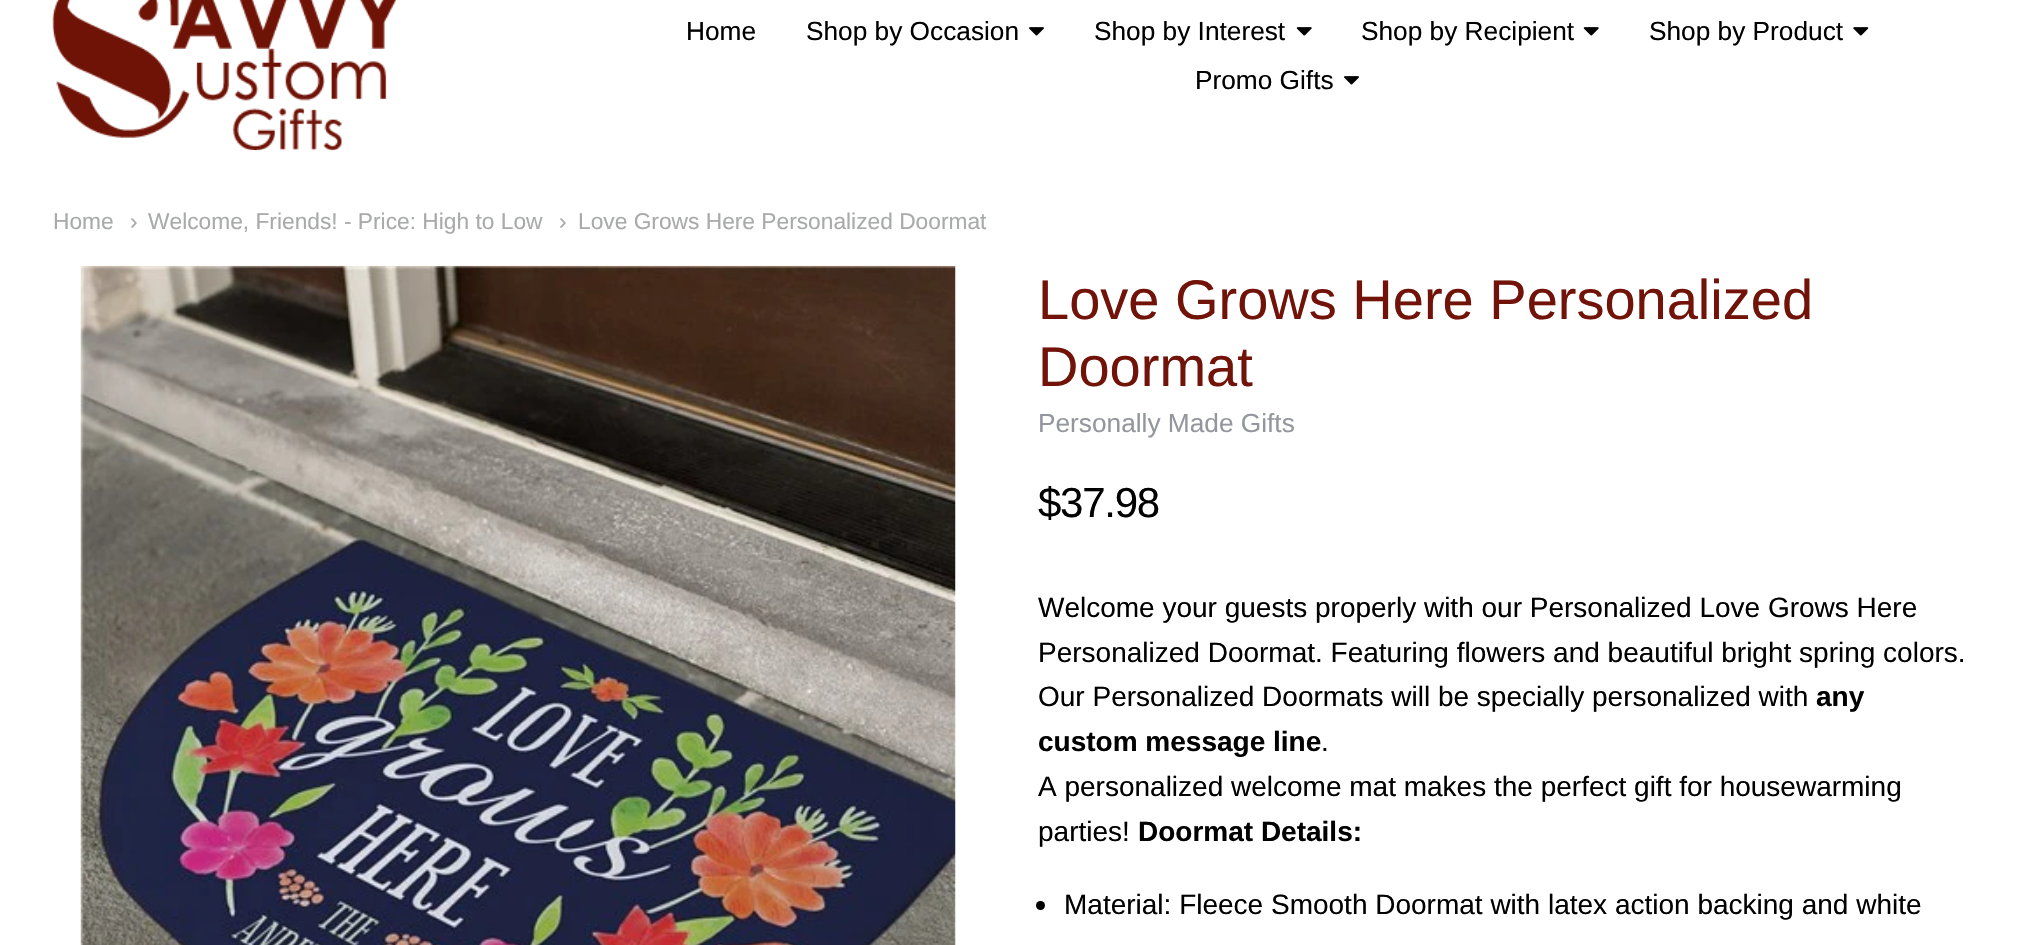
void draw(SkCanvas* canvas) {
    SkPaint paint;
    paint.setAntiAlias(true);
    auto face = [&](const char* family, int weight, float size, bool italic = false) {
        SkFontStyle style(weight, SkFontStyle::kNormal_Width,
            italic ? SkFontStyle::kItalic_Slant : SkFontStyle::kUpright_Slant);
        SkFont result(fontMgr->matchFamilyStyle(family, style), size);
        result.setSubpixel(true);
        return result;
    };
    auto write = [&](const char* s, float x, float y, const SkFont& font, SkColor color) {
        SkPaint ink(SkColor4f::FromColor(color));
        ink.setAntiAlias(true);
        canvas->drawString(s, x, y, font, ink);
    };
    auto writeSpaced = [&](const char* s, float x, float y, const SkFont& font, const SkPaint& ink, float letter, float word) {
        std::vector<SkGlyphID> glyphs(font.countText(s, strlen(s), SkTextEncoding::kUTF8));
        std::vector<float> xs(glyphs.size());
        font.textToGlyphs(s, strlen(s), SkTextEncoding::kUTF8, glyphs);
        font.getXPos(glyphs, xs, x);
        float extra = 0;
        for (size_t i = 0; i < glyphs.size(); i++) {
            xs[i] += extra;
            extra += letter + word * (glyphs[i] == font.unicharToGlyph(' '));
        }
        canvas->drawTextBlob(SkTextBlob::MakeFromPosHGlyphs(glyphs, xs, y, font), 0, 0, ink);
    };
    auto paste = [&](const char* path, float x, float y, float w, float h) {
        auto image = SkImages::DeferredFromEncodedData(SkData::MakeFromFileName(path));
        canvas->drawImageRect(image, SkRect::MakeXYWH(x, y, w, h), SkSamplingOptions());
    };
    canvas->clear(SK_ColorWHITE);
    paste("pic1.png", 52, 0, 345, 151);
    auto kFont1 = face("Liberation Sans", 400, 26.25f);
    write("Home", 686, 40, kFont1, SK_ColorBLACK);
    write("Shop by Occasion", 806, 40, kFont1, SK_ColorBLACK);
    paste("pic2.png", 1029, 27, 15, 9);
    write("Shop by Interest", 1094, 40, kFont1, SK_ColorBLACK);
    paste("pic3.png", 1296, 27, 16, 9);
    write("Shop by Recipient", 1361, 40, kFont1, SK_ColorBLACK);
    paste("pic3.png", 1583, 27, 16, 9);
    write("Shop by Product", 1649, 40, kFont1, SK_ColorBLACK);
    paste("pic4.png", 1853, 27, 16, 9);
    write("Promo Gifts", 1195, 89, kFont1, SK_ColorBLACK);
    paste("pic2.png", 1344, 76, 15, 9);
    auto kFont2 = face("Liberation Sans", 400, 22.75f);
    write("Home", 53, 229, kFont2, SkColorSetRGB(169, 170, 170));
    write("›", 130, 229, kFont2, SkColorSetRGB(169, 170, 170));
    write("Welcome, Friends! - Price: High to Low", 148, 229, kFont2, SkColorSetRGB(169, 170, 170));
    write("›", 559, 229, kFont2, SkColorSetRGB(169, 170, 170));
    write("Love Grows Here Personalized Doormat", 578, 229, kFont2, SkColorSetRGB(169, 170, 170));
    paste("pic5.png", 80, 265, 876, 680);
    auto kFont3 = face("Liberation Sans", 400, 56);
    write("Love Grows Here Personalized", 1038, 319, kFont3, SkColorSetRGB(113, 19, 8));
    write("Doormat", 1038, 386, kFont3, SkColorSetRGB(113, 19, 8));
    write("Personally Made Gifts", 1038, 432, kFont1, SkColorSetRGB(147, 151, 157));
    auto kFont4 = face("Liberation Sans", 400, 42);
    paint.setColor(SK_ColorBLACK);
    writeSpaced("$37.98", 1038, 517, kFont4, paint, -1.25f, 0);
    auto kFont5 = face("Liberation Sans", 400, 28);
    write("Welcome your guests properly with our Personalized Love Grows Here", 1038, 617, kFont5, SK_ColorBLACK);
    write("Personalized Doormat. Featuring flowers and beautiful bright spring colors.", 1038, 662, kFont5, SK_ColorBLACK);
    write("Our Personalized Doormats will be specially personalized with", 1038, 706, kFont5, SK_ColorBLACK);
    auto kFont6 = face("Liberation Sans", 700, 28);
    write("any", 1816, 706, kFont6, SK_ColorBLACK);
    write("custom message line", 1038, 751, kFont6, SK_ColorBLACK);
    write(".", 1321, 751, kFont5, SK_ColorBLACK);
    write("A personalized welcome mat makes the perfect gift for housewarming", 1038, 796, kFont5, SK_ColorBLACK);
    write("parties!", 1038, 841, kFont5, SK_ColorBLACK);
    write("Doormat Details:", 1138, 841, kFont6, SK_ColorBLACK);
    canvas->drawCircle(1040.5f, 905.5f, 4.5f, paint);
    write("Material: Fleece Smooth Doormat with latex action backing and white", 1064, 914, kFont5, SK_ColorBLACK);
}
